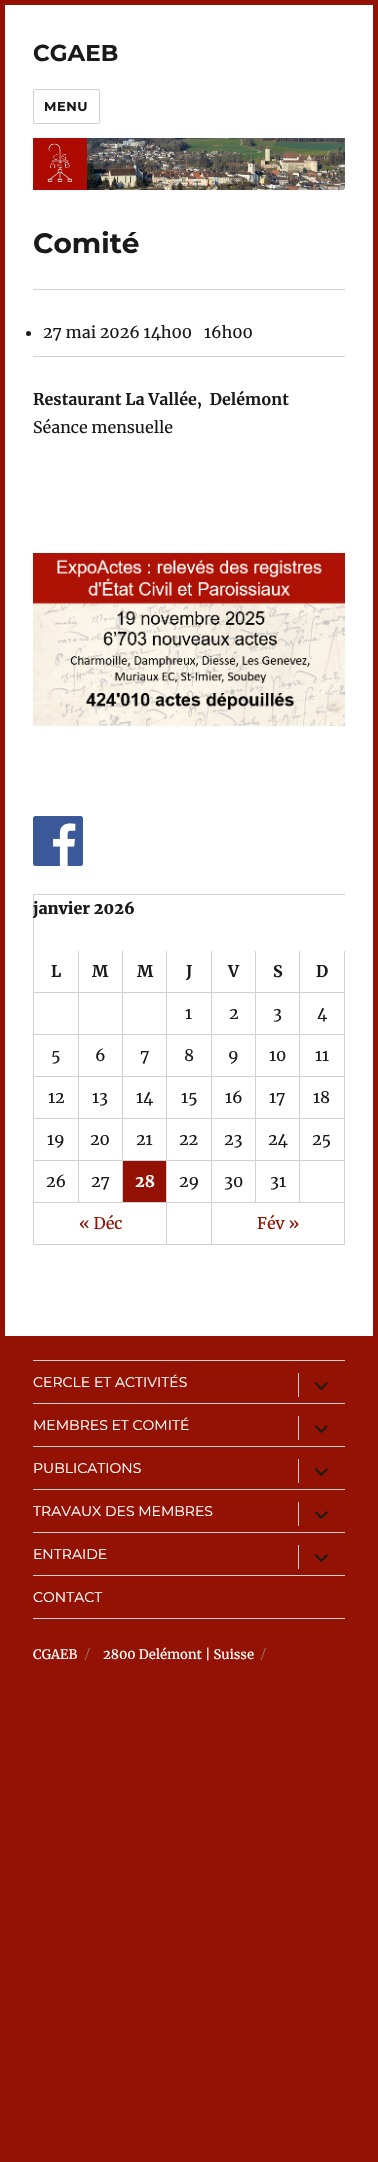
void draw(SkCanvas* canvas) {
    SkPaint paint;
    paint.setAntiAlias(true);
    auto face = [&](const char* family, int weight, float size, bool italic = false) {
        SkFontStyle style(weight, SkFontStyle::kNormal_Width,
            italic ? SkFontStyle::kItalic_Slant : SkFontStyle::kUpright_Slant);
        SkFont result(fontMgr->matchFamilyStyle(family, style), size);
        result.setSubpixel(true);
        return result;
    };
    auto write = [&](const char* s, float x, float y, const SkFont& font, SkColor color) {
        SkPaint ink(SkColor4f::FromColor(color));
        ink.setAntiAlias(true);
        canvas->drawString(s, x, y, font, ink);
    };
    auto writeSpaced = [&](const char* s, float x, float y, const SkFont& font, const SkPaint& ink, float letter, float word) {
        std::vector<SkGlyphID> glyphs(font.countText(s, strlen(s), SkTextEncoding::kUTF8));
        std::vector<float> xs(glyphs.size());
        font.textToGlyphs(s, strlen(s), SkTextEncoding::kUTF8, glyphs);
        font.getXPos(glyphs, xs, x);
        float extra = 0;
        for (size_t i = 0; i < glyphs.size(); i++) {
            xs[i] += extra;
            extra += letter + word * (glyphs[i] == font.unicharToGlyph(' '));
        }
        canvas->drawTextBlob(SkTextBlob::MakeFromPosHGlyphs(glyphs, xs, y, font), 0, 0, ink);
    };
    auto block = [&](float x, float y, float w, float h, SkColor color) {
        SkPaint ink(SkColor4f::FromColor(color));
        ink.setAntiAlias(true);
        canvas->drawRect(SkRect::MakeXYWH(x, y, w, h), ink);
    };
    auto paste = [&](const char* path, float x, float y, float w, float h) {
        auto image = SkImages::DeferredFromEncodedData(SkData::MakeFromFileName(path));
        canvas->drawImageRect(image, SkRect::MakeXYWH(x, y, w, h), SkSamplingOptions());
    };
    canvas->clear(SkColorSetRGB(147, 18, 4));
    block(5, 5, 368, 1331, SK_ColorWHITE);
    auto kFont1 = face("Montserrat", 100, 23);
    write("CGAEB", 33, 61, kFont1, SkColorSetRGB(26, 26, 26));
    paint.setStyle(SkPaint::kStroke_Style);
    paint.setStrokeWidth(1);
    paint.setColor(SkColorSetRGB(209, 209, 209));
    canvas->drawRoundRect(SkRect::MakeXYWH(33.5f, 89.5f, 66, 34), 1.5f, 1.5f, paint);
    auto kFont2 = face("Montserrat", 100, 13);
    paint.setStyle(SkPaint::kFill_Style);
    paint.setColor(SkColorSetRGB(26, 26, 26));
    writeSpaced("MENU", 44, 111, kFont2, paint, 0.5f, 0);
    paste("pic1.png", 33, 138, 312, 52);
    auto kFont3 = face("Montserrat", 100, 28);
    write("Comité", 33, 253, kFont3, SkColorSetRGB(26, 26, 26));
    block(33, 289, 312, 1, SkColorSetRGB(209, 209, 209));
    canvas->drawCircle(28.5f, 333.5f, 2.5f, paint);
    auto kFont4 = face("Merriweather", 400, 16);
    write("27 mai 2026 14h00", 43, 338, kFont4, SkColorSetRGB(26, 26, 26));
    write("16h00", 204, 338, kFont4, SkColorSetRGB(26, 26, 26));
    block(33, 356, 312, 1, SkColorSetRGB(209, 209, 209));
    auto kFont5 = face("Merriweather", 700, 16);
    write("Restaurant La Vallée,  Delémont", 33, 405, kFont5, SkColorSetRGB(26, 26, 26));
    write("Séance mensuelle", 33, 433, kFont4, SkColorSetRGB(26, 26, 26));
    paste("pic2.png", 33, 553, 312, 173);
    paste("pic3.png", 33, 816, 50, 50);
    block(33, 894, 312, 1, SkColorSetRGB(209, 209, 209));
    block(33, 894, 1, 351, SkColorSetRGB(209, 209, 209));
    auto kFont6 = face("Merriweather", 900, 16);
    write("janvier 2026", 33, 914, kFont6, SkColorSetRGB(26, 26, 26));
    block(78, 951, 1, 252, SkColorSetRGB(209, 209, 209));
    block(34, 992, 45, 1, SkColorSetRGB(209, 209, 209));
    write("L", 51, 977, kFont5, SkColorSetRGB(26, 26, 26));
    block(122, 951, 1, 252, SkColorSetRGB(209, 209, 209));
    block(79, 992, 44, 1, SkColorSetRGB(209, 209, 209));
    write("M", 92, 977, kFont5, SkColorSetRGB(26, 26, 26));
    block(166, 951, 1, 294, SkColorSetRGB(209, 209, 209));
    block(123, 992, 44, 1, SkColorSetRGB(209, 209, 209));
    write("M", 137, 977, kFont5, SkColorSetRGB(26, 26, 26));
    block(211, 951, 1, 294, SkColorSetRGB(209, 209, 209));
    block(167, 992, 45, 1, SkColorSetRGB(209, 209, 209));
    write("J", 186, 977, kFont5, SkColorSetRGB(26, 26, 26));
    block(255, 951, 1, 252, SkColorSetRGB(209, 209, 209));
    block(212, 992, 44, 1, SkColorSetRGB(209, 209, 209));
    write("V", 228, 977, kFont5, SkColorSetRGB(26, 26, 26));
    block(299, 951, 1, 252, SkColorSetRGB(209, 209, 209));
    block(256, 992, 44, 1, SkColorSetRGB(209, 209, 209));
    write("S", 273, 977, kFont5, SkColorSetRGB(26, 26, 26));
    block(344, 951, 1, 294, SkColorSetRGB(209, 209, 209));
    block(300, 992, 45, 1, SkColorSetRGB(209, 209, 209));
    write("D", 316, 977, kFont5, SkColorSetRGB(26, 26, 26));
    write("1", 185, 1019, kFont4, SkColorSetRGB(26, 26, 26));
    write("2", 229, 1019, kFont4, SkColorSetRGB(26, 26, 26));
    write("3", 273, 1019, kFont4, SkColorSetRGB(26, 26, 26));
    write("4", 317, 1019, kFont4, SkColorSetRGB(26, 26, 26));
    block(34, 1034, 311, 1, SkColorSetRGB(209, 209, 209));
    block(34, 1076, 311, 1, SkColorSetRGB(209, 209, 209));
    write("5", 51, 1061, kFont4, SkColorSetRGB(26, 26, 26));
    write("6", 95, 1061, kFont4, SkColorSetRGB(26, 26, 26));
    write("7", 140, 1061, kFont4, SkColorSetRGB(26, 26, 26));
    write("8", 184, 1061, kFont4, SkColorSetRGB(26, 26, 26));
    write("9", 228, 1061, kFont4, SkColorSetRGB(26, 26, 26));
    write("10", 269, 1061, kFont4, SkColorSetRGB(26, 26, 26));
    write("11", 315, 1061, kFont4, SkColorSetRGB(26, 26, 26));
    block(34, 1118, 311, 1, SkColorSetRGB(209, 209, 209));
    write("12", 48, 1103, kFont4, SkColorSetRGB(26, 26, 26));
    write("13", 92, 1103, kFont4, SkColorSetRGB(26, 26, 26));
    write("14", 136, 1103, kFont4, SkColorSetRGB(26, 26, 26));
    write("15", 181, 1103, kFont4, SkColorSetRGB(26, 26, 26));
    write("16", 225, 1103, kFont4, SkColorSetRGB(26, 26, 26));
    write("17", 269, 1103, kFont4, SkColorSetRGB(26, 26, 26));
    write("18", 313, 1103, kFont4, SkColorSetRGB(26, 26, 26));
    block(34, 1160, 311, 1, SkColorSetRGB(209, 209, 209));
    write("19", 47, 1145, kFont4, SkColorSetRGB(26, 26, 26));
    write("20", 90, 1145, kFont4, SkColorSetRGB(26, 26, 26));
    write("21", 136, 1145, kFont4, SkColorSetRGB(26, 26, 26));
    write("22", 179, 1145, kFont4, SkColorSetRGB(26, 26, 26));
    write("23", 224, 1145, kFont4, SkColorSetRGB(26, 26, 26));
    write("24", 268, 1145, kFont4, SkColorSetRGB(26, 26, 26));
    write("25", 312, 1145, kFont4, SkColorSetRGB(26, 26, 26));
    block(34, 1202, 311, 1, SkColorSetRGB(209, 209, 209));
    write("26", 46, 1187, kFont4, SkColorSetRGB(26, 26, 26));
    write("27", 91, 1187, kFont4, SkColorSetRGB(26, 26, 26));
    block(123, 1161, 43, 41, SkColorSetRGB(147, 18, 4));
    write("28", 135, 1187, kFont5, SK_ColorWHITE);
    write("29", 179, 1187, kFont4, SkColorSetRGB(26, 26, 26));
    write("30", 224, 1187, kFont4, SkColorSetRGB(26, 26, 26));
    write("31", 270, 1187, kFont4, SkColorSetRGB(26, 26, 26));
    block(34, 1244, 311, 1, SkColorSetRGB(209, 209, 209));
    write("« Déc", 79, 1229, kFont4, SkColorSetRGB(147, 18, 4));
    write("Fév »", 257, 1229, kFont4, SkColorSetRGB(147, 18, 4));
    block(33, 1618, 312, 1, SkColorSetRGB(209, 209, 209));
    block(33, 1360, 312, 1, SkColorSetRGB(209, 209, 209));
    auto kFont7 = face("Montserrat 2", 100, 14);
    write("CERCLE ET ACTIVITÉS", 33, 1387, kFont7, SK_ColorWHITE);
    block(298, 1373, 1, 24, SkColorSetRGB(209, 209, 209));
    paste("pic4.png", 314, 1382, 14, 9);
    block(33, 1403, 312, 1, SkColorSetRGB(209, 209, 209));
    write("MEMBRES ET COMITÉ", 33, 1430, kFont7, SK_ColorWHITE);
    block(298, 1416, 1, 24, SkColorSetRGB(209, 209, 209));
    paste("pic4.png", 314, 1425, 14, 9);
    block(33, 1446, 312, 1, SkColorSetRGB(209, 209, 209));
    write("PUBLICATIONS", 33, 1473, kFont7, SK_ColorWHITE);
    block(298, 1459, 1, 24, SkColorSetRGB(209, 209, 209));
    paste("pic4.png", 314, 1468, 14, 9);
    block(33, 1489, 312, 1, SkColorSetRGB(209, 209, 209));
    write("TRAVAUX DES MEMBRES", 33, 1516, kFont7, SK_ColorWHITE);
    block(298, 1502, 1, 24, SkColorSetRGB(209, 209, 209));
    paste("pic4.png", 314, 1511, 14, 9);
    block(33, 1532, 312, 1, SkColorSetRGB(209, 209, 209));
    write("ENTRAIDE", 33, 1559, kFont7, SK_ColorWHITE);
    block(298, 1545, 1, 24, SkColorSetRGB(209, 209, 209));
    paste("pic4.png", 314, 1554, 14, 9);
    block(33, 1575, 312, 1, SkColorSetRGB(209, 209, 209));
    write("CONTACT", 33, 1602, kFont7, SK_ColorWHITE);
    auto kFont8 = face("Merriweather", 400, 13);
    write("CGAEB", 33, 1659, kFont8, SK_ColorWHITE);
    auto kFont9 = face("Montserrat 2", 100, 13);
    write("/", 85, 1659, kFont9, SkColorSetRGB(155, 116, 112));
    write("2800 Delémont | Suisse", 103, 1659, kFont8, SK_ColorWHITE);
    write("/", 261, 1659, kFont9, SkColorSetRGB(155, 116, 112));
}
